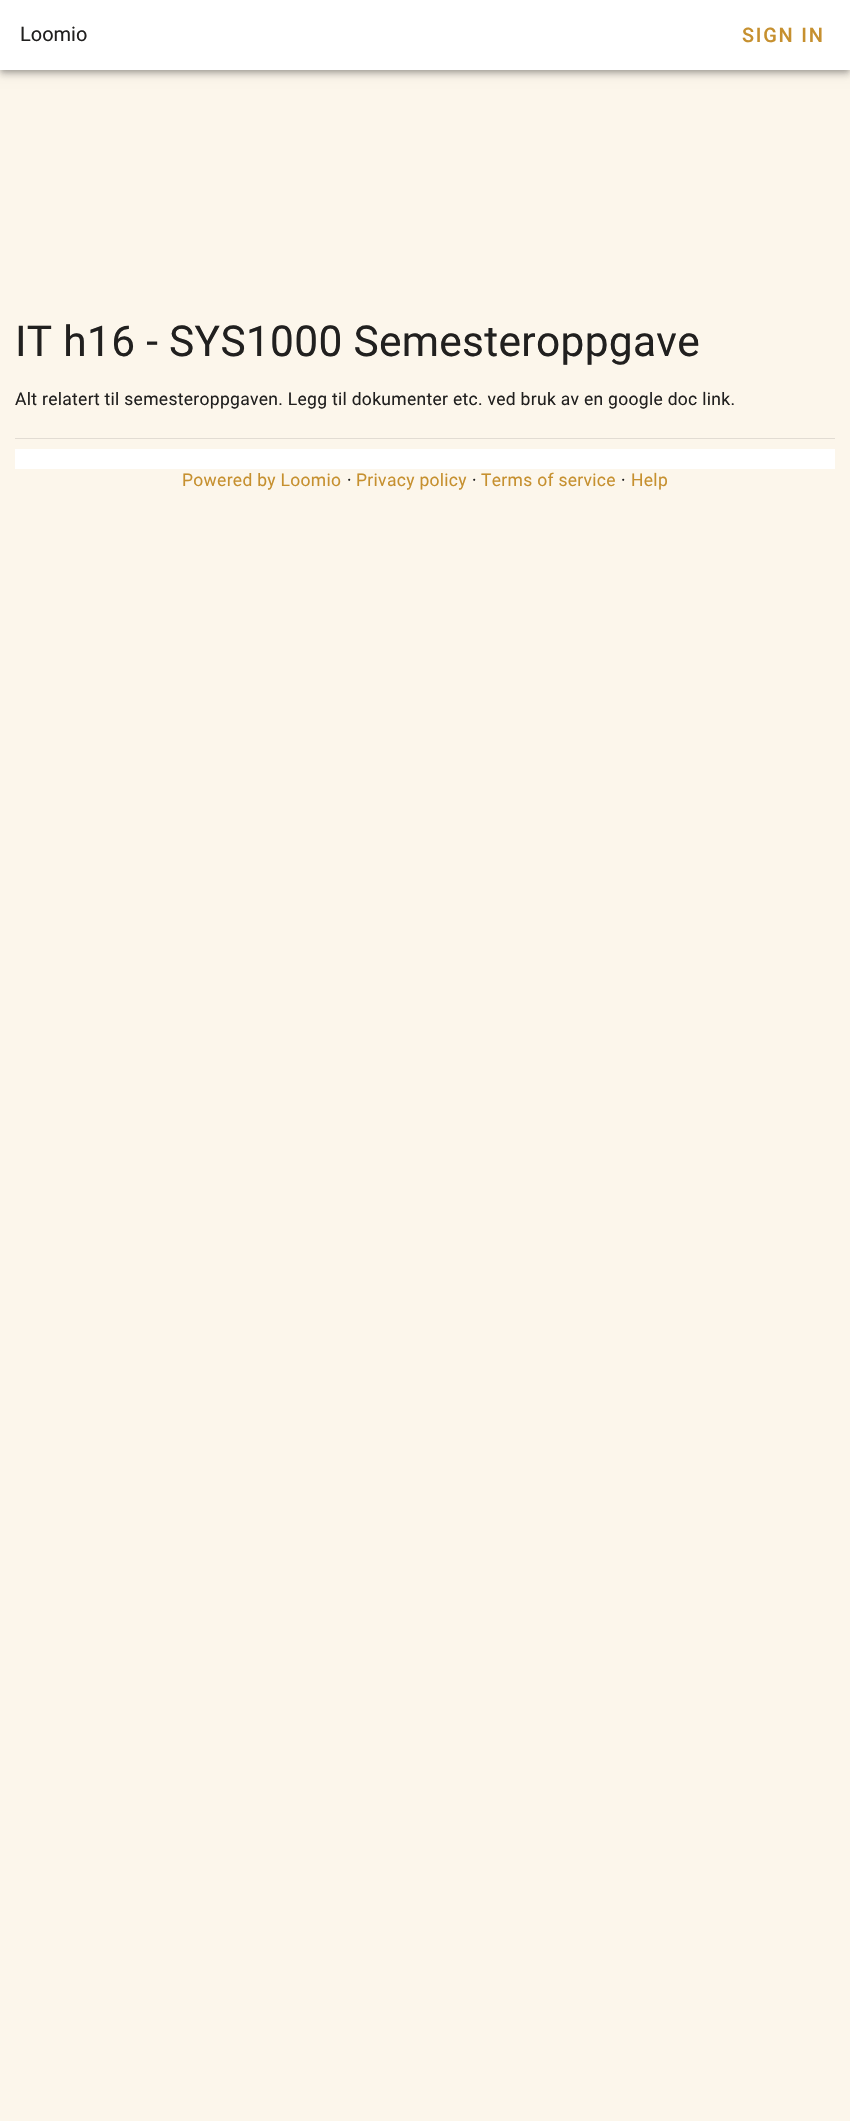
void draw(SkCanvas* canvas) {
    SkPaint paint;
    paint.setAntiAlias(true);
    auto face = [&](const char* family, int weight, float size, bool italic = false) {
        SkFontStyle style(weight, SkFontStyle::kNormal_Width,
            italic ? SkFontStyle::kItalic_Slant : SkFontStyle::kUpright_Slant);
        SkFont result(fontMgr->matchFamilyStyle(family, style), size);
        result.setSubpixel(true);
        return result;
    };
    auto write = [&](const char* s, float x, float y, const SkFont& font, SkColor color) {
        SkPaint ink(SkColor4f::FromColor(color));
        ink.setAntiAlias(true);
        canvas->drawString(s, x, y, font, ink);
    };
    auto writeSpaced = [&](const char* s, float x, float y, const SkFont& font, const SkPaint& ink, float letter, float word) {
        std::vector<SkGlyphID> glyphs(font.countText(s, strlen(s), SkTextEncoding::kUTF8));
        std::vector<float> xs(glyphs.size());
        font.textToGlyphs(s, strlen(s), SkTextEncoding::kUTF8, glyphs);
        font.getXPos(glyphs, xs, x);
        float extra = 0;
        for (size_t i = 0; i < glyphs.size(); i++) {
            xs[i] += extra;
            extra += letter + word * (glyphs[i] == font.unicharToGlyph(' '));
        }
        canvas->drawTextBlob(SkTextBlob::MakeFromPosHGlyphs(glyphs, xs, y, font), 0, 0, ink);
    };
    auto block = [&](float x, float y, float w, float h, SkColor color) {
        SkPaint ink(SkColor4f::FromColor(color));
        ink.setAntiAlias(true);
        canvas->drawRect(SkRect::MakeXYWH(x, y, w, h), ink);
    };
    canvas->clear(SkColorSetRGB(252, 246, 235));
    paint.setColor(SkColorSetARGB(31, 0, 0, 0));
    paint.setMaskFilter(SkMaskFilter::MakeBlur(kNormal_SkBlurStyle, 6));
    canvas->drawRect(SkRect::MakeXYWH(0, 1, 850, 70), paint);
    paint.setMaskFilter(nullptr);
    paint.setColor(SkColorSetARGB(36, 0, 0, 0));
    paint.setMaskFilter(SkMaskFilter::MakeBlur(kNormal_SkBlurStyle, 3));
    canvas->drawRect(SkRect::MakeXYWH(0, 5, 850, 70), paint);
    paint.setMaskFilter(nullptr);
    paint.setColor(SkColorSetARGB(51, 0, 0, 0));
    paint.setMaskFilter(SkMaskFilter::MakeBlur(kNormal_SkBlurStyle, 2.5f));
    canvas->drawRect(SkRect::MakeXYWH(1, 4, 848, 67), paint);
    paint.setMaskFilter(nullptr);
    block(0, 0, 850, 70, SK_ColorWHITE);
    auto kFont1 = face("Roboto", 400, 20);
    write("Loomio", 20, 41, kFont1, SkColorSetRGB(33, 32, 31));
    auto kFont2 = face("Roboto", 500, 20);
    paint.setColor(SkColorSetRGB(198, 144, 47));
    writeSpaced("SIGN IN", 742, 42, kFont2, paint, 1.75f, 0);
    auto kFont3 = face("Roboto", 400, 42.5f);
    paint.setColor(SkColorSetRGB(33, 32, 31));
    writeSpaced("IT h16 - SYS1000 Semesteroppgave", 15, 356, kFont3, paint, 0.3f, 0);
    auto kFont4 = face("Roboto", 400, 17.5f);
    writeSpaced("Alt relatert til semesteroppgaven. Legg til dokumenter etc. ved bruk av en google doc link.", 15, 405, kFont4, paint, 0.3f, 0);
    block(15, 438, 820, 1, SkColorSetRGB(226, 220, 211));
    block(15, 449, 820, 20, SK_ColorWHITE);
    paint.setColor(SkColorSetRGB(198, 144, 47));
    writeSpaced("Powered by Loomio", 182, 486, kFont4, paint, 0.3f, 0);
    paint.setColor(SkColorSetRGB(33, 32, 31));
    writeSpaced("·", 347, 486, kFont4, paint, 0.3f, 0);
    paint.setColor(SkColorSetRGB(198, 144, 47));
    writeSpaced("Privacy policy", 356, 486, kFont4, paint, 0.3f, 0);
    paint.setColor(SkColorSetRGB(33, 32, 31));
    writeSpaced("·", 472, 486, kFont4, paint, 0.3f, 0);
    paint.setColor(SkColorSetRGB(198, 144, 47));
    writeSpaced("Terms of service", 481, 486, kFont4, paint, 0.3f, 0);
    paint.setColor(SkColorSetRGB(33, 32, 31));
    writeSpaced("·", 621, 486, kFont4, paint, 0.3f, 0);
    paint.setColor(SkColorSetRGB(198, 144, 47));
    writeSpaced("Help", 631, 486, kFont4, paint, 0.3f, 0);
}
